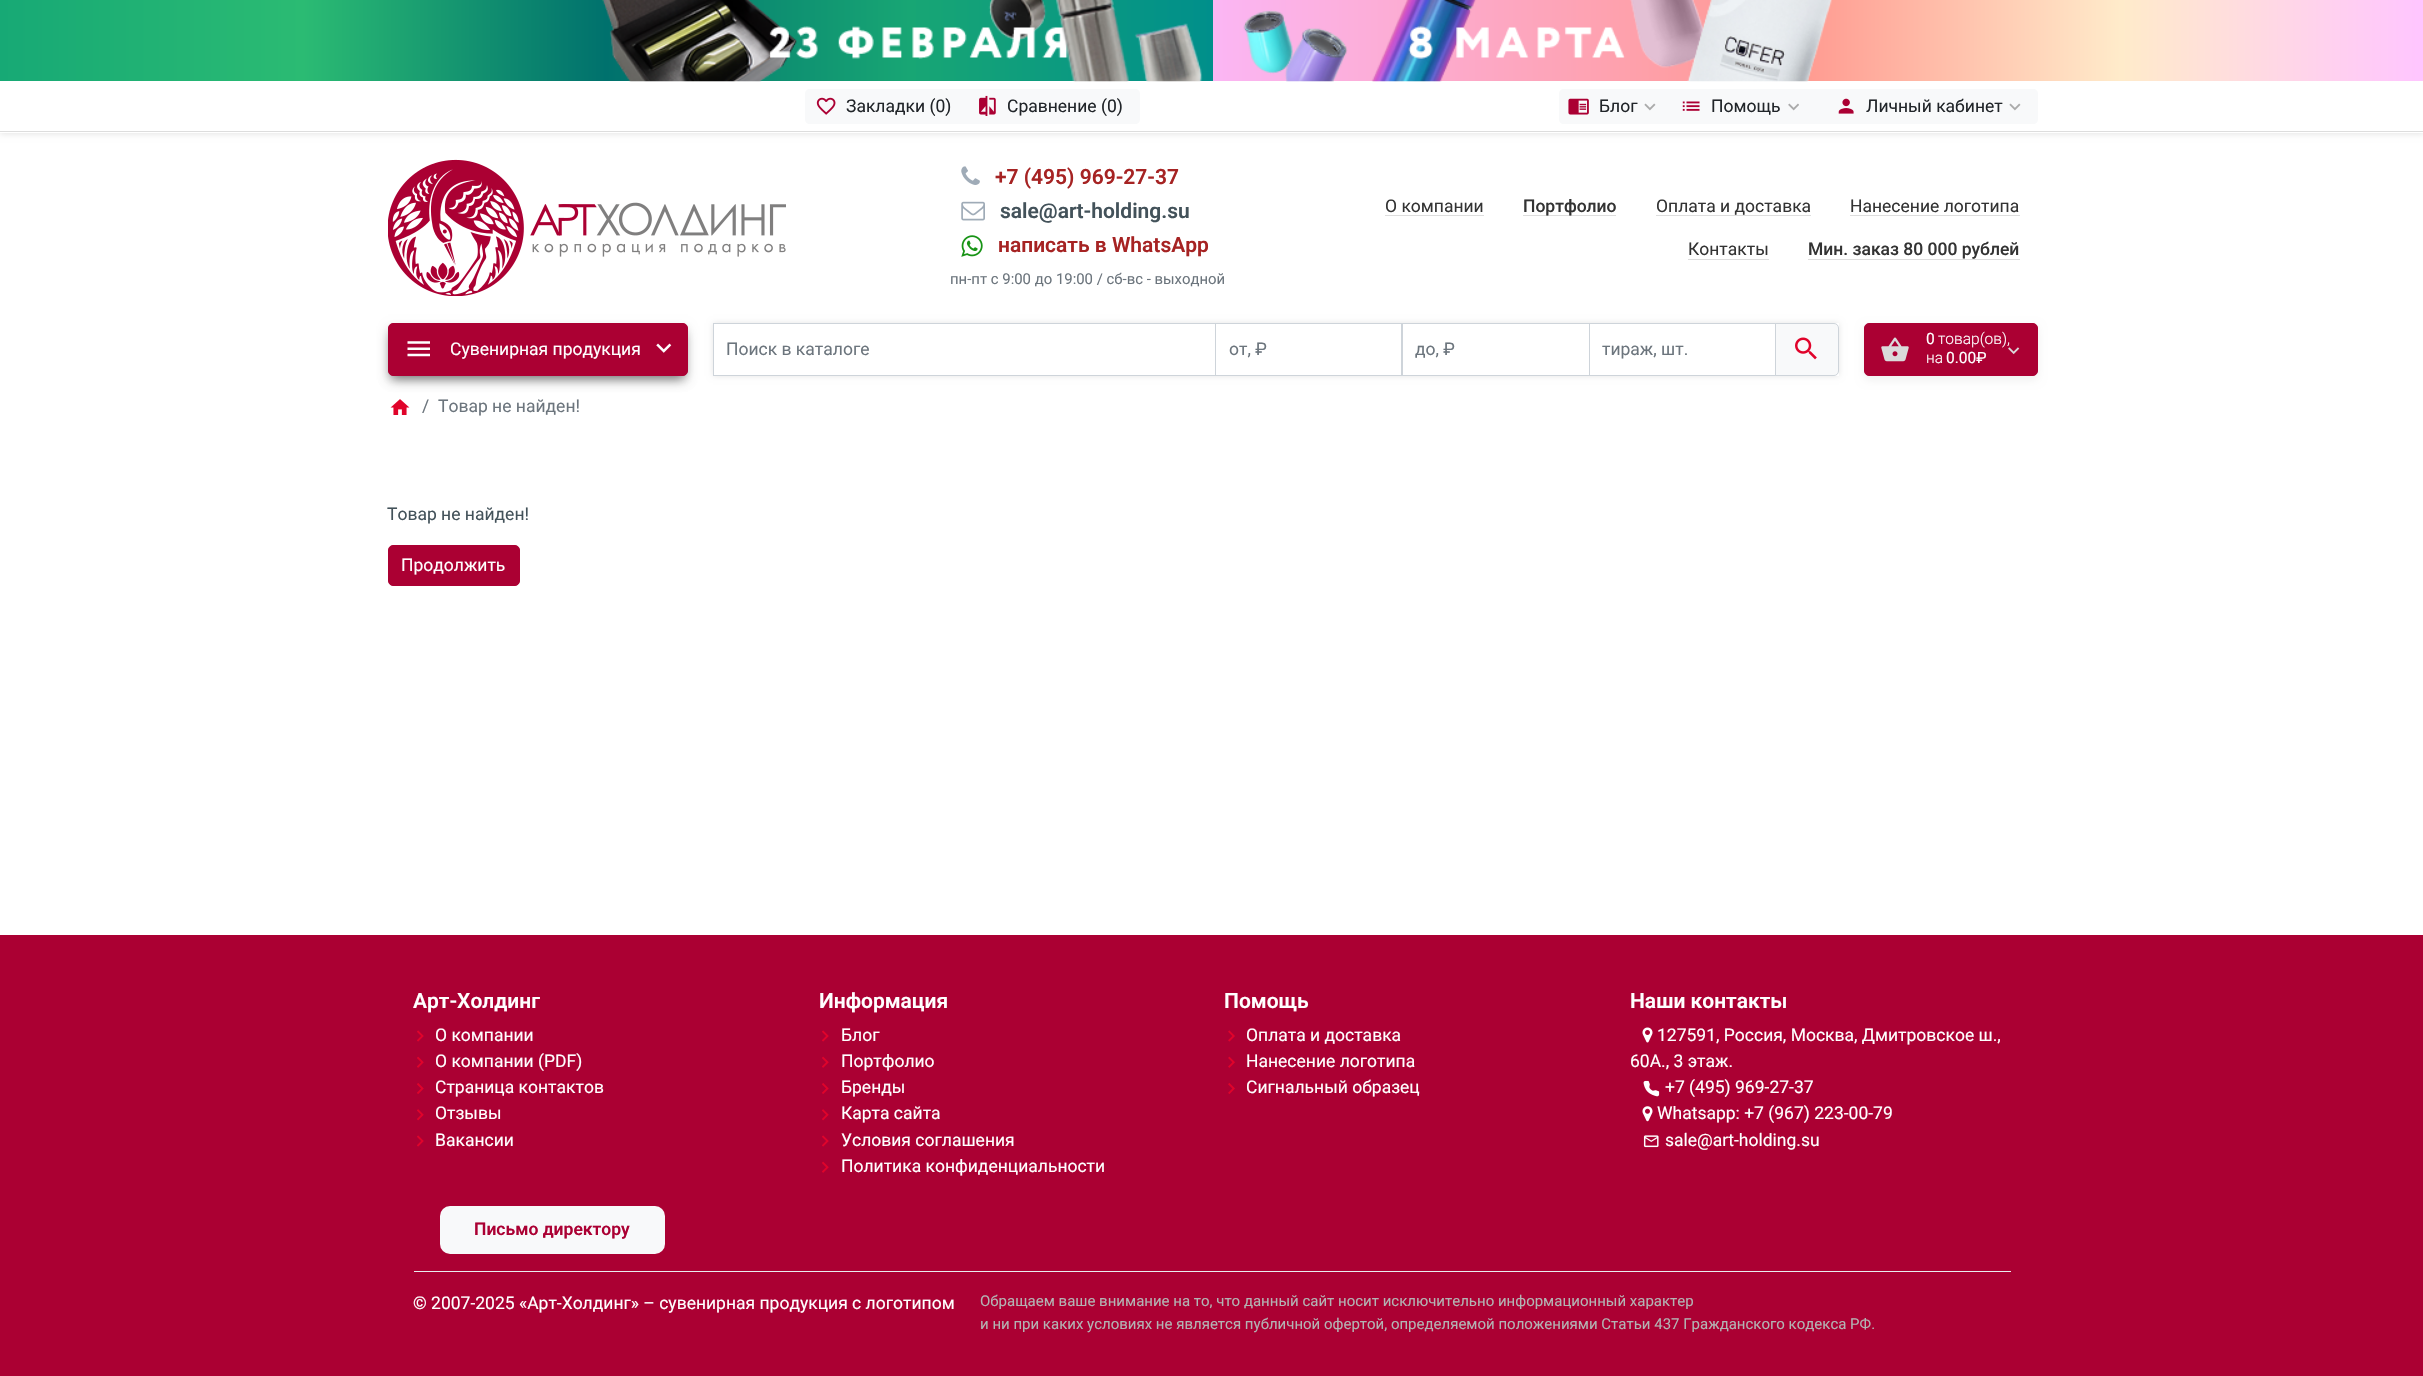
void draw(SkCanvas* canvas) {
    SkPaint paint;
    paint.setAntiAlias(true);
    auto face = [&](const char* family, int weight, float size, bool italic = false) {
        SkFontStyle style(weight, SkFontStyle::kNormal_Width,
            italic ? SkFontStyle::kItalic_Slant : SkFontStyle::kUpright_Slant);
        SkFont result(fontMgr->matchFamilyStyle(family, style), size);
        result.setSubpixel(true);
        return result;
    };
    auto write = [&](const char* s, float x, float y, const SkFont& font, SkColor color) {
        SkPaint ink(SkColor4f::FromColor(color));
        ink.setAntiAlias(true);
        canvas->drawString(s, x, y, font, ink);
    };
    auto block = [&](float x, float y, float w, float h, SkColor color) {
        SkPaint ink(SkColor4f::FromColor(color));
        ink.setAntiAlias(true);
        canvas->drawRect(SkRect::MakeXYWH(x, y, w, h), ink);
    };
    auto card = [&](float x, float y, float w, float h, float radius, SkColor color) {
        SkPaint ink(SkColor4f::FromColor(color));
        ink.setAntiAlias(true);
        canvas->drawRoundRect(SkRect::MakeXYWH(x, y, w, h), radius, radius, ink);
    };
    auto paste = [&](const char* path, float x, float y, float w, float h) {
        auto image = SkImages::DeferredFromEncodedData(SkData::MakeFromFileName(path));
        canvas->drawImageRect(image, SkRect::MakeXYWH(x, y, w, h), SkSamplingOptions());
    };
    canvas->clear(SK_ColorWHITE);
    paint.setColor(SkColorSetARGB(26, 0, 0, 0));
    paint.setMaskFilter(SkMaskFilter::MakeBlur(kNormal_SkBlurStyle, 3));
    canvas->drawRect(SkRect::MakeXYWH(0, 83, 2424, 51), paint);
    paint.setMaskFilter(nullptr);
    {
        const SkColor colors[] = {SkColorSetRGB(23, 169, 117), SkColorSetRGB(43, 187, 115), SkColorSetRGB(0, 113, 109), SkColorSetRGB(24, 166, 116), SkColorSetRGB(0, 143, 139)};
        const float stops[] = {0, 0.25f, 0.5f, 0.75f, 1};
        const SkPoint ends[] = {{0, 41}, {1213, 41}};
        paint.setShader(SkGradientShader::MakeLinear(ends, colors, stops, 5, SkTileMode::kClamp));
        paint.setAlpha(255);
    }
    canvas->drawRect(SkRect::MakeXYWH(0, 0, 1213, 81), paint);
    block(0, 81, 2423, 52, SK_ColorWHITE);
    paste("pic1.png", 602, 0, 601, 82);
    {
        const SkColor colors[] = {SkColorSetRGB(251, 182, 244), SkColorSetRGB(255, 152, 143), SkColorSetRGB(255, 235, 202), SkColorSetRGB(255, 197, 255)};
        const float stops[] = {0, 0.48f, 0.75f, 1};
        const SkPoint ends[] = {{1213, 41}, {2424, 41}};
        paint.setShader(SkGradientShader::MakeLinear(ends, colors, stops, 4, SkTileMode::kClamp));
        paint.setAlpha(255);
    }
    canvas->drawRect(SkRect::MakeXYWH(1213, 0, 1210, 81), paint);
    paste("pic2.png", 1243, 0, 589, 82);
    block(0, 131, 2423, 1, SkColorSetRGB(221, 221, 221));
    paint.setShader(nullptr);
    paint.setColor(SkColorSetRGB(248, 249, 250));
    canvas->drawPath(SkPathBuilder().moveTo(810, 89).lineTo(968, 89).lineTo(968, 124).lineTo(810, 124).cubicTo(807, 124, 805, 122, 805, 119).lineTo(805, 94).cubicTo(805, 91, 807, 89, 810, 89).close().detach(), paint);
    paste("pic3.png", 816, 97, 20, 18);
    auto kFont1 = face("Roboto", 400, 17.5f);
    write("Закладки (0)", 846, 112, kFont1, SkColorSetRGB(33, 37, 41));
    canvas->drawPath(SkPathBuilder().moveTo(966, 89).lineTo(1135, 89).cubicTo(1138, 89, 1140, 91, 1140, 94).lineTo(1140, 119).cubicTo(1140, 122, 1138, 124, 1135, 124).lineTo(966, 124).close().detach(), paint);
    paste("pic4.png", 979, 95, 17, 21);
    write("Сравнение (0)", 1007, 112, kFont1, SkColorSetRGB(33, 37, 41));
    canvas->drawPath(SkPathBuilder().moveTo(1564, 89).lineTo(1671, 89).lineTo(1671, 124).lineTo(1564, 124).cubicTo(1561, 124, 1559, 122, 1559, 119).lineTo(1559, 94).cubicTo(1559, 91, 1561, 89, 1564, 89).close().detach(), paint);
    paste("pic5.png", 1568, 98, 21, 17);
    write("Блог", 1599, 112, kFont1, SkColorSetRGB(33, 37, 41));
    paste("pic6.png", 1644, 103, 12, 8);
    block(1671, 89, 143, 35, SkColorSetRGB(248, 249, 250));
    paste("pic7.png", 1682, 101, 18, 10);
    write("Помощь", 1711, 112, kFont1, SkColorSetRGB(33, 37, 41));
    paste("pic8.png", 1788, 103, 11, 8);
    canvas->drawPath(SkPathBuilder().moveTo(1814, 89).lineTo(2033, 89).cubicTo(2036, 89, 2038, 91, 2038, 94).lineTo(2038, 119).cubicTo(2038, 122, 2036, 124, 2033, 124).lineTo(1814, 124).close().detach(), paint);
    paste("pic9.png", 1838, 98, 16, 16);
    write("Личный кабинет", 1866, 112, kFont1, SkColorSetRGB(33, 37, 41));
    paste("pic6.png", 2009, 103, 12, 8);
    paste("pic10.png", 388, 159, 398, 137);
    paste("pic11.png", 961, 166, 19, 19);
    auto kFont2 = face("Roboto", 600, 21);
    write("+7 (495) 969-27-37", 995, 184, kFont2, SkColorSetRGB(166, 35, 35));
    paste("pic12.png", 961, 201, 24, 20);
    write("sale@art-holding.su", 1000, 218, kFont2, SkColorSetRGB(67, 82, 90));
    paste("pic13.png", 961, 235, 22, 22);
    write("написать в WhatsApp", 998, 252, kFont2, SkColorSetRGB(166, 35, 35));
    auto kFont3 = face("Roboto", 400, 14.9f);
    write("пн-пт с 9:00 до 19:00 / сб-вс - выходной", 950, 284, kFont3, SkColorSetRGB(108, 117, 125));
    write("О компании", 1385, 212, kFont1, SkColorSetRGB(51, 51, 51));
    block(1385, 215, 99, 1, SkColorSetRGB(221, 221, 221));
    block(1523, 215, 93, 1, SkColorSetRGB(221, 221, 221));
    auto kFont4 = face("Roboto", 500, 17.5f);
    write("Портфолио", 1523, 212, kFont4, SkColorSetRGB(51, 51, 51));
    write("Оплата и доставка", 1656, 212, kFont1, SkColorSetRGB(51, 51, 51));
    block(1656, 215, 155, 1, SkColorSetRGB(221, 221, 221));
    write("Нанесение логотипа", 1850, 212, kFont1, SkColorSetRGB(51, 51, 51));
    block(1850, 215, 170, 1, SkColorSetRGB(221, 221, 221));
    write("Контакты", 1688, 255, kFont1, SkColorSetRGB(51, 51, 51));
    block(1688, 259, 81, 1, SkColorSetRGB(221, 221, 221));
    write("Мин. заказ 80 000 рублей", 1808, 255, kFont4, SkColorSetRGB(51, 51, 51));
    block(1808, 259, 212, 1, SkColorSetRGB(221, 221, 221));
    paint.setColor(SkColorSetARGB(15, 0, 0, 0));
    paint.setMaskFilter(SkMaskFilter::MakeBlur(kNormal_SkBlurStyle, 4));
    canvas->drawRect(SkRect::MakeXYWH(388, 326, 300, 54), paint);
    paint.setMaskFilter(nullptr);
    paint.setColor(SkColorSetARGB(140, 0, 0, 0));
    paint.setMaskFilter(SkMaskFilter::MakeBlur(kNormal_SkBlurStyle, 6));
    canvas->drawRoundRect(SkRect::MakeXYWH(391, 333, 293, 46), 0.5f, 0.5f, paint);
    paint.setMaskFilter(nullptr);
    paint.setColor(SkColorSetRGB(171, 0, 51));
    canvas->drawRoundRect(SkRect::MakeXYWH(388.5f, 323.5f, 299, 52), 4.5f, 4.5f, paint);
    paint.setStyle(SkPaint::kStroke_Style);
    paint.setStrokeWidth(1);
    canvas->drawRoundRect(SkRect::MakeXYWH(388.5f, 323.5f, 299, 52), 4.5f, 4.5f, paint);
    paste("pic14.png", 407, 341, 23, 16);
    write("Сувенирная продукция", 450, 355, kFont1, SK_ColorWHITE);
    paste("pic15.png", 656, 343, 16, 10);
    canvas->save();
    canvas->clipPath(SkPathBuilder(SkPathFillType::kEvenOdd).moveTo(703, 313).lineTo(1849, 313).lineTo(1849, 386).lineTo(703, 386).close().moveTo(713, 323).lineTo(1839, 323).lineTo(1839, 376).lineTo(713, 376).close().detach(), true);
    paint.setStyle(SkPaint::kFill_Style);
    paint.setColor(SkColorSetARGB(26, 0, 0, 0));
    paint.setMaskFilter(SkMaskFilter::MakeBlur(kNormal_SkBlurStyle, 3));
    canvas->drawRect(SkRect::MakeXYWH(713, 323, 1126, 53), paint);
    paint.setMaskFilter(nullptr);
    canvas->restore();
    paint.setStyle(SkPaint::kStroke_Style);
    paint.setColor(SkColorSetRGB(206, 212, 218));
    canvas->drawRect(SkRect::MakeXYWH(713.5f, 323.5f, 502, 52), paint);
    write("Поиск в каталоге", 726, 355, kFont1, SkColorSetRGB(108, 117, 125));
    canvas->drawRect(SkRect::MakeXYWH(1215.5f, 323.5f, 187, 52), paint);
    write("от, ₽", 1229, 355, kFont1, SkColorSetRGB(108, 117, 125));
    canvas->drawRect(SkRect::MakeXYWH(1401.5f, 323.5f, 188, 52), paint);
    write("до, ₽", 1415, 355, kFont1, SkColorSetRGB(108, 117, 125));
    canvas->drawRect(SkRect::MakeXYWH(1589.5f, 323.5f, 186, 52), paint);
    write("тираж, шт.", 1602, 355, kFont1, SkColorSetRGB(108, 117, 125));
    paint.setStyle(SkPaint::kFill_Style);
    paint.setColor(SkColorSetRGB(248, 249, 250));
    canvas->drawPath(SkPathBuilder().moveTo(1775.5f, 323.5f).lineTo(1834, 323.5f).cubicTo(1836.5f, 323.5f, 1838.5f, 325.5f, 1838.5f, 328).lineTo(1838.5f, 371).cubicTo(1838.5f, 373.5f, 1836.5f, 375.5f, 1834, 375.5f).lineTo(1775.5f, 375.5f).close().detach(), paint);
    paint.setStyle(SkPaint::kStroke_Style);
    paint.setColor(SkColorSetRGB(206, 212, 218));
    canvas->drawPath(SkPathBuilder().moveTo(1775.5f, 323.5f).lineTo(1834, 323.5f).cubicTo(1836.5f, 323.5f, 1838.5f, 325.5f, 1838.5f, 328).lineTo(1838.5f, 371).cubicTo(1838.5f, 373.5f, 1836.5f, 375.5f, 1834, 375.5f).lineTo(1775.5f, 375.5f).close().detach(), paint);
    paste("pic16.png", 1795, 337, 22, 23);
    paint.setStyle(SkPaint::kFill_Style);
    paint.setColor(SkColorSetARGB(15, 0, 0, 0));
    paint.setMaskFilter(SkMaskFilter::MakeBlur(kNormal_SkBlurStyle, 4));
    canvas->drawRoundRect(SkRect::MakeXYWH(1864, 326, 174, 54), 5, 5, paint);
    paint.setMaskFilter(nullptr);
    paint.setColor(SkColorSetRGB(171, 0, 51));
    canvas->drawRoundRect(SkRect::MakeXYWH(1864.5f, 323.5f, 173, 52), 4.5f, 4.5f, paint);
    paint.setStyle(SkPaint::kStroke_Style);
    canvas->drawRoundRect(SkRect::MakeXYWH(1864.5f, 323.5f, 173, 52), 4.5f, 4.5f, paint);
    paste("pic17.png", 1881, 337, 28, 25);
    auto kFont5 = face("Roboto", 400, 15.5f);
    write("0", 1926, 344, kFont5, SK_ColorWHITE);
    auto kFont6 = face("Roboto", 300, 15.5f);
    write("товар(ов),", 1938, 344, kFont6, SK_ColorWHITE);
    write("на", 1926, 363, kFont6, SK_ColorWHITE);
    write("0.00₽", 1946, 363, kFont5, SK_ColorWHITE);
    paste("pic18.png", 2008, 347, 12, 8);
    paste("pic19.png", 390, 399, 20, 16);
    write("/", 422, 412, kFont1, SkColorSetRGB(108, 117, 125));
    write("Товар не найден!", 438, 412, kFont1, SkColorSetRGB(108, 117, 125));
    write("Товар не найден!", 387, 520, kFont1, SkColorSetRGB(67, 82, 90));
    paint.setStyle(SkPaint::kFill_Style);
    canvas->drawRoundRect(SkRect::MakeXYWH(388.5f, 545.5f, 131, 40), 4.5f, 4.5f, paint);
    paint.setStyle(SkPaint::kStroke_Style);
    canvas->drawRoundRect(SkRect::MakeXYWH(388.5f, 545.5f, 131, 40), 4.5f, 4.5f, paint);
    write("Продолжить", 401, 571, kFont1, SK_ColorWHITE);
    block(0, 935, 2423, 441, SkColorSetRGB(171, 0, 51));
    write("Арт-Холдинг", 413, 1008, kFont2, SK_ColorWHITE);
    paste("pic20.png", 417, 1030, 7, 12);
    write("О компании", 435, 1041, kFont1, SK_ColorWHITE);
    paste("pic21.png", 417, 1056, 7, 12);
    write("О компании (PDF)", 435, 1067, kFont1, SK_ColorWHITE);
    paste("pic22.png", 417, 1083, 7, 11);
    write("Страница контактов", 435, 1093, kFont1, SK_ColorWHITE);
    paste("pic23.png", 417, 1109, 7, 12);
    write("Отзывы", 435, 1119, kFont1, SK_ColorWHITE);
    paste("pic20.png", 417, 1135, 7, 12);
    write("Вакансии", 435, 1146, kFont1, SK_ColorWHITE);
    card(440, 1206, 225, 48, 10, SkColorSetRGB(248, 249, 250));
    auto kFont7 = face("Roboto", 600, 17.5f);
    write("Письмо директору", 474, 1235, kFont7, SkColorSetRGB(171, 0, 51));
    write("Информация", 819, 1008, kFont2, SK_ColorWHITE);
    paste("pic20.png", 822, 1030, 7, 12);
    write("Блог", 841, 1041, kFont1, SK_ColorWHITE);
    paste("pic21.png", 822, 1056, 7, 12);
    write("Портфолио", 841, 1067, kFont1, SK_ColorWHITE);
    paste("pic22.png", 822, 1083, 7, 11);
    write("Бренды", 841, 1093, kFont1, SK_ColorWHITE);
    paste("pic23.png", 822, 1109, 7, 12);
    write("Карта сайта", 841, 1119, kFont1, SK_ColorWHITE);
    paste("pic20.png", 822, 1135, 7, 12);
    write("Условия соглашения", 841, 1146, kFont1, SK_ColorWHITE);
    paste("pic21.png", 822, 1161, 7, 12);
    write("Политика конфиденциальности", 841, 1172, kFont1, SK_ColorWHITE);
    write("Помощь", 1224, 1008, kFont2, SK_ColorWHITE);
    paste("pic24.png", 1228, 1030, 7, 12);
    write("Оплата и доставка", 1246, 1041, kFont1, SK_ColorWHITE);
    paste("pic25.png", 1228, 1056, 7, 12);
    write("Нанесение логотипа", 1246, 1067, kFont1, SK_ColorWHITE);
    paste("pic26.png", 1228, 1083, 7, 11);
    write("Сигнальный образец", 1246, 1093, kFont1, SK_ColorWHITE);
    write("Наши контакты", 1630, 1008, kFont2, SK_ColorWHITE);
    paste("pic27.png", 1642, 1027, 11, 16);
    write("127591, Россия, Москва, Дмитровское ш.,", 1657, 1041, kFont1, SK_ColorWHITE);
    write("60А., 3 этаж.", 1630, 1067, kFont1, SK_ColorWHITE);
    paste("pic28.png", 1643, 1080, 17, 17);
    write("+7 (495) 969-27-37", 1665, 1093, kFont1, SK_ColorWHITE);
    paste("pic29.png", 1642, 1106, 11, 16);
    write("Whatsapp: +7 (967) 223-00-79", 1657, 1119, kFont1, SK_ColorWHITE);
    paste("pic30.png", 1643, 1135, 16, 13);
    write("sale@art-holding.su", 1665, 1146, kFont1, SK_ColorWHITE);
    block(414, 1271, 1597, 1, SkColorSetRGB(233, 236, 239));
    write("© 2007-2025 «Арт-Холдинг» – сувенирная продукция с логотипом", 413, 1309, kFont1, SK_ColorWHITE);
    auto kFont8 = face("Roboto", 400, 15);
    write("Обращаем ваше внимание на то, что данный сайт носит исключительно информационный характер", 980, 1306, kFont8, SkColorSetRGB(179, 179, 179));
    write("и ни при каких условиях не является публичной офертой, определяемой положениями Статьи 437 Гражданского кодекса РФ.", 980, 1329, kFont8, SkColorSetRGB(179, 179, 179));
}
